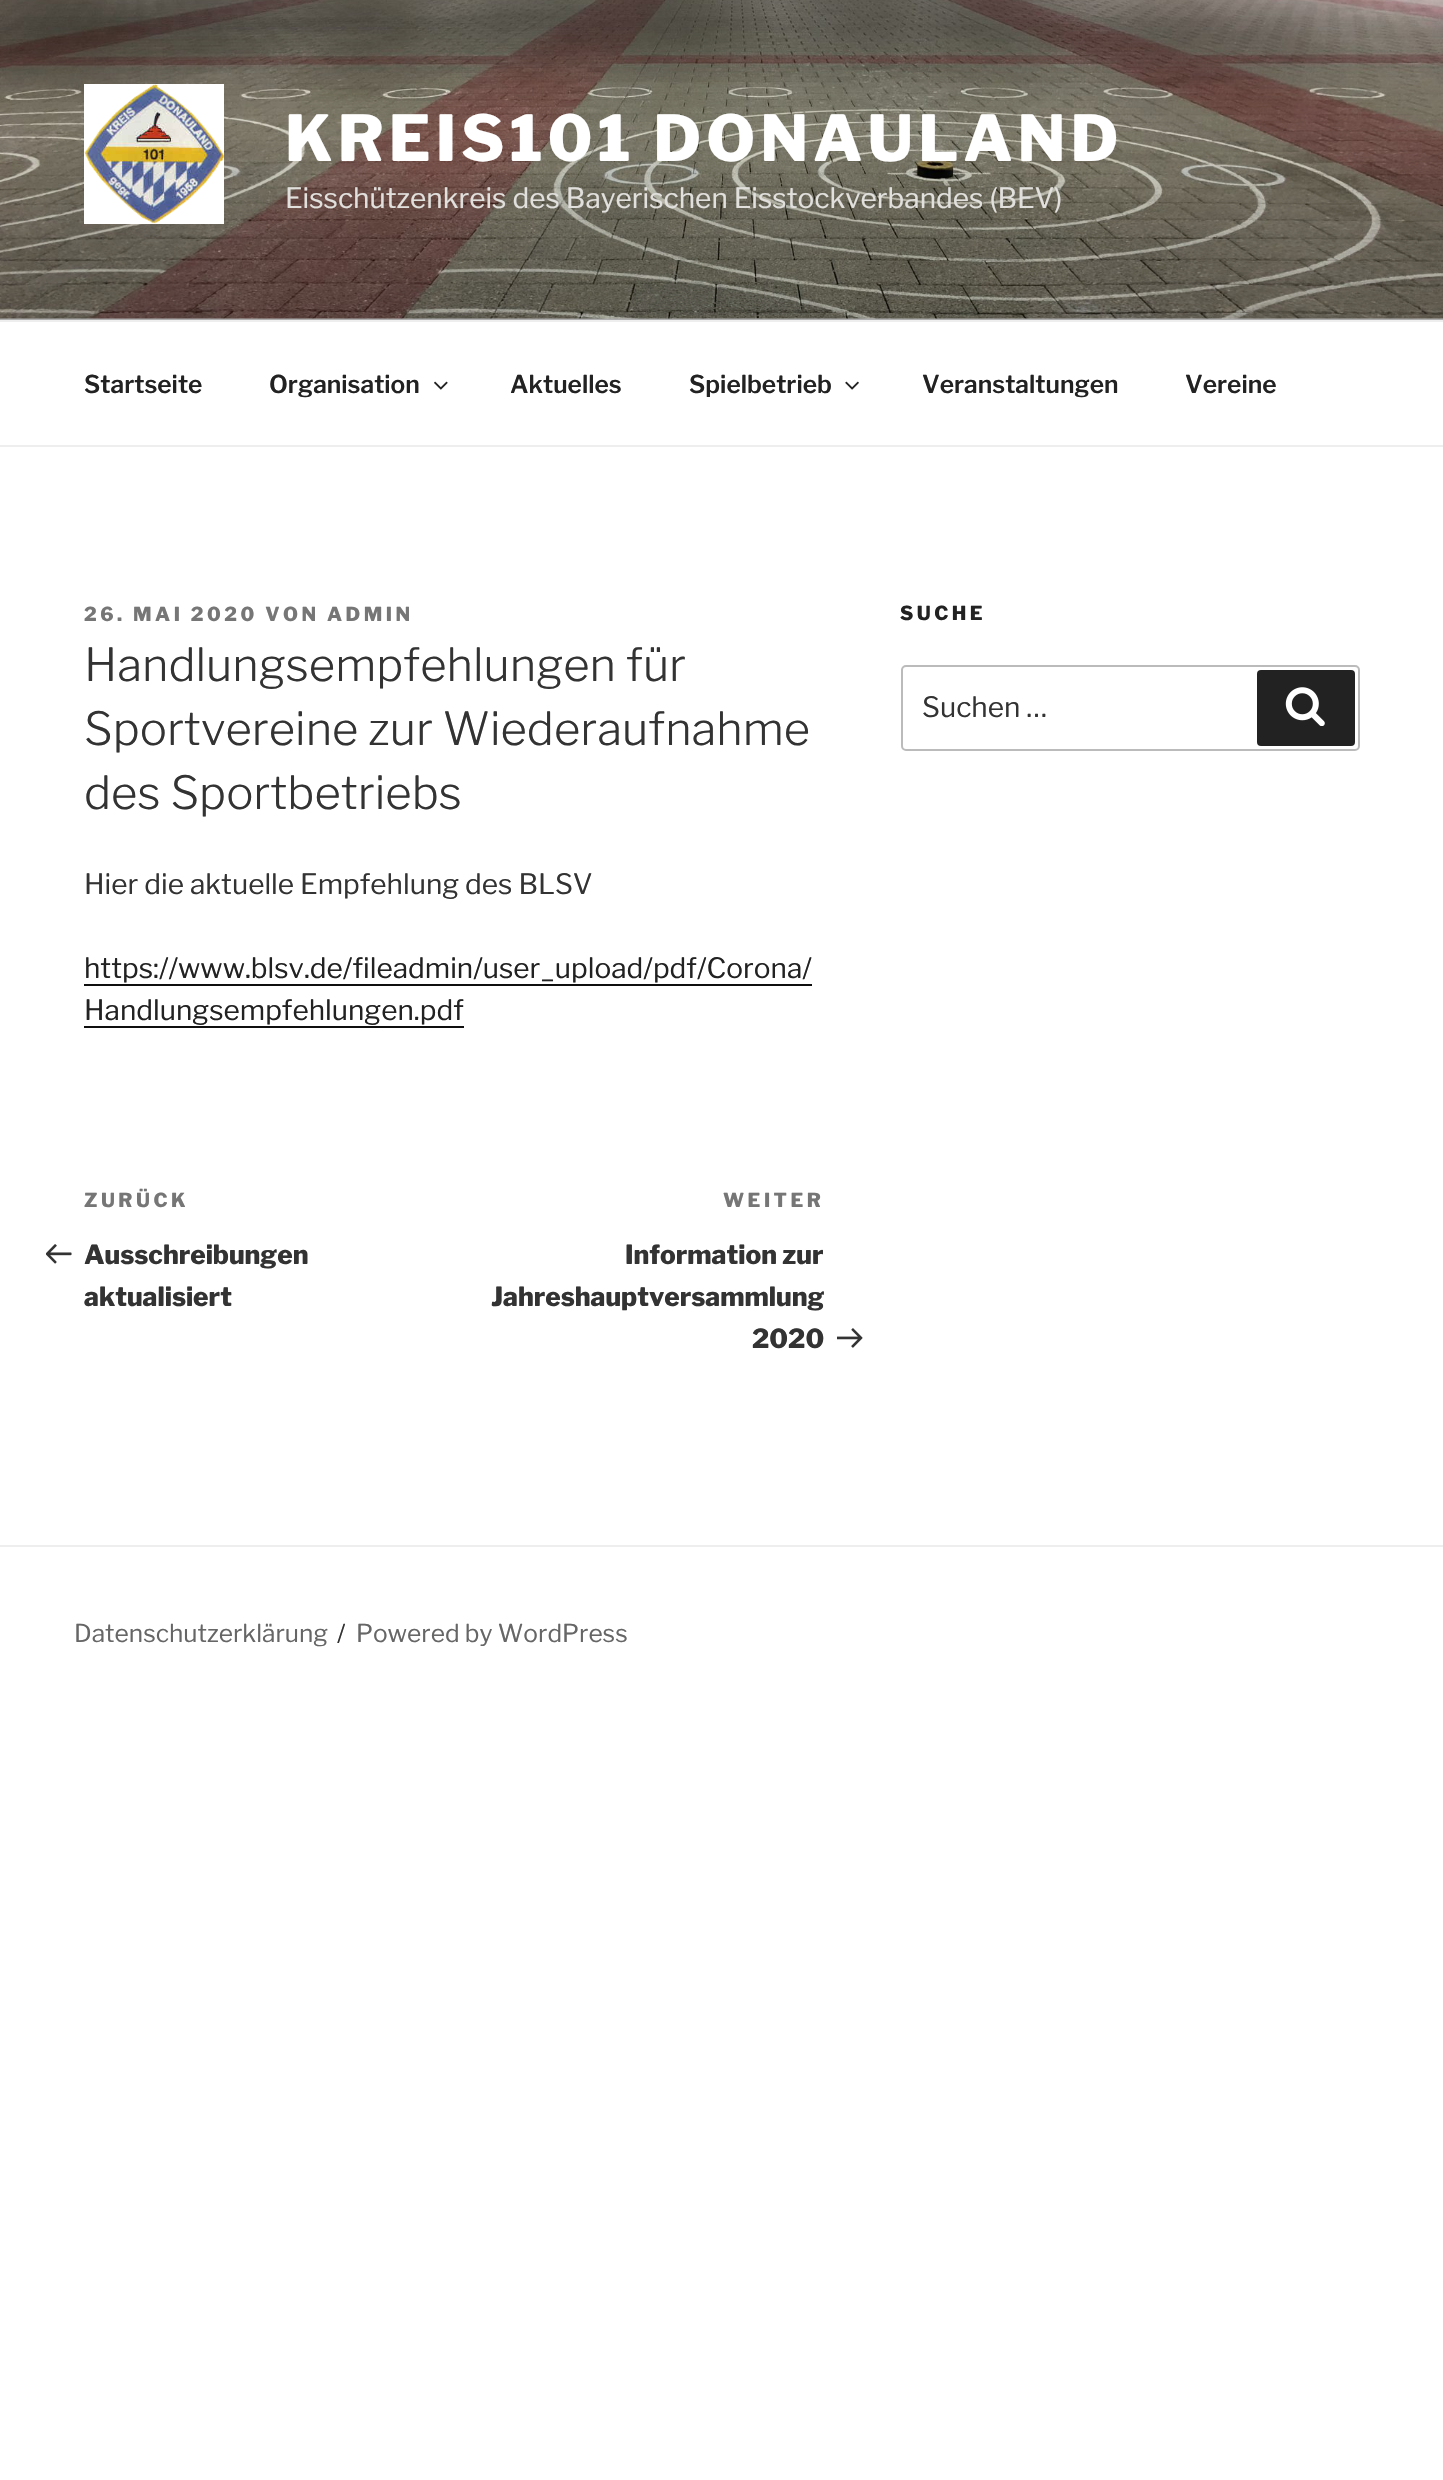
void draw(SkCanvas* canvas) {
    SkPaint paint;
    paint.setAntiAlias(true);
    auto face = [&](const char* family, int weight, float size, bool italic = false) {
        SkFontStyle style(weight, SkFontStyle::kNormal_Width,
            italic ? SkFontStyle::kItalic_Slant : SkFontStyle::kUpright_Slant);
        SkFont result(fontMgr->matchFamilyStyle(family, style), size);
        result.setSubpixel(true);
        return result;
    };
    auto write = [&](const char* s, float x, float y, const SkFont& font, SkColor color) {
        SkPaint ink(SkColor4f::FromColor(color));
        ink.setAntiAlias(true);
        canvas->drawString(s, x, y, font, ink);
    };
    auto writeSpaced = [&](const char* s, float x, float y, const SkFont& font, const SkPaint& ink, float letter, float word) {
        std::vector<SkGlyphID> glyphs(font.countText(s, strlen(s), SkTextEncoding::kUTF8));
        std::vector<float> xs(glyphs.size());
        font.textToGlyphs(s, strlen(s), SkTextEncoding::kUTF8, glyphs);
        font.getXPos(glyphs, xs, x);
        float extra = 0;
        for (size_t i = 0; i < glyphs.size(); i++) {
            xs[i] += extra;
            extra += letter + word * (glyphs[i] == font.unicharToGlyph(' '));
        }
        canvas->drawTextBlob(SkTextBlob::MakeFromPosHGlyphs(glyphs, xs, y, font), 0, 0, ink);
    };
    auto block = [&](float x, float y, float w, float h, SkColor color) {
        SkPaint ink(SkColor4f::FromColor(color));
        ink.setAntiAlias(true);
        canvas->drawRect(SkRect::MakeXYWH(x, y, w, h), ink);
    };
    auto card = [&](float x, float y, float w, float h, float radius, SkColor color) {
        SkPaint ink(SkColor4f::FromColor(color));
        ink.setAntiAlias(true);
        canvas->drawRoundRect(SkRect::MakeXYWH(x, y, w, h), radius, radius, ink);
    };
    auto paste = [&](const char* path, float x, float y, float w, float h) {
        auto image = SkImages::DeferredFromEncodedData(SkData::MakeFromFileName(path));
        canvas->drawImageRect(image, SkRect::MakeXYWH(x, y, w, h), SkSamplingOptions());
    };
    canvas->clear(SK_ColorWHITE);
    block(0, 318, 1443, 2, SkColorSetRGB(250, 250, 250));
    paste("pic1.png", 0, 0, 1443, 319);
    {
        const SkColor colors[] = {SkColorSetARGB(0, 0, 0, 0), SkColorSetARGB(77, 0, 0, 0), SkColorSetARGB(77, 0, 0, 0)};
        const float stops[] = {0, 0.75f, 1};
        const SkPoint ends[] = {{722, 0}, {722, 320}};
        paint.setShader(SkGradientShader::MakeLinear(ends, colors, stops, 3, SkTileMode::kClamp));
        paint.setAlpha(255);
    }
    canvas->drawRect(SkRect::MakeXYWH(0, 17, 1443, 303), paint);
    paste("pic2.png", 84, 84, 140, 140);
    auto kFont1 = face("Libre Franklin", 800, 63);
    paint.setShader(nullptr);
    paint.setColor(SK_ColorWHITE);
    writeSpaced("KREIS101 DONAULAND", 285, 161, kFont1, paint, 5, 0);
    auto kFont2 = face("Libre Franklin", 400, 28);
    write("Eisschützenkreis des Bayerischen Eisstockverbandes (BEV)", 285, 208, kFont2, SkColorSetRGB(226, 224, 221));
    block(0, 320, 1443, 2, SkColorSetRGB(238, 238, 238));
    block(0, 445, 1443, 2, SkColorSetRGB(238, 238, 238));
    auto kFont3 = face("Libre Franklin", 600, 24.5f);
    write("Startseite", 84, 393, kFont3, SkColorSetRGB(34, 34, 34));
    write("Organisation", 269, 393, kFont3, SkColorSetRGB(34, 34, 34));
    paste("pic3.png", 434, 381, 14, 9);
    write("Aktuelles", 510, 393, kFont3, SkColorSetRGB(34, 34, 34));
    write("Spielbetrieb", 689, 393, kFont3, SkColorSetRGB(34, 34, 34));
    paste("pic4.png", 845, 381, 14, 9);
    write("Veranstaltungen", 922, 393, kFont3, SkColorSetRGB(34, 34, 34));
    write("Vereine", 1185, 393, kFont3, SkColorSetRGB(34, 34, 34));
    auto kFont4 = face("Libre Franklin", 800, 19.25f);
    paint.setColor(SkColorSetRGB(118, 118, 118));
    writeSpaced("26. MAI 2020 VON ADMIN", 84, 621, kFont4, paint, 3.5f, 0);
    auto kFont5 = face("Libre Franklin", 300, 45.5f);
    write("Handlungsempfehlungen für", 84, 681, kFont5, SkColorSetRGB(51, 51, 51));
    write("Sportvereine zur Wiederaufnahme", 84, 745, kFont5, SkColorSetRGB(51, 51, 51));
    write("des Sportbetriebs", 84, 809, kFont5, SkColorSetRGB(51, 51, 51));
    write("Hier die aktuelle Empfehlung des BLSV", 84, 894, kFont2, SkColorSetRGB(51, 51, 51));
    write("https://www.blsv.de/fileadmin/user_upload/pdf/Corona/", 84, 978, kFont2, SkColorSetRGB(34, 34, 34));
    block(84, 984, 728, 2, SkColorSetRGB(15, 15, 15));
    write("Handlungsempfehlungen.pdf", 84, 1020, kFont2, SkColorSetRGB(34, 34, 34));
    block(84, 1026, 380, 2, SkColorSetRGB(15, 15, 15));
    writeSpaced("ZURÜCK", 84, 1207, kFont4, paint, 3.5f, 0);
    paste("pic5.png", 46, 1244, 26, 20);
    auto kFont6 = face("Libre Franklin", 800, 26.25f);
    write("Ausschreibungen", 84, 1264, kFont6, SkColorSetRGB(51, 51, 51));
    write("aktualisiert", 84, 1306, kFont6, SkColorSetRGB(51, 51, 51));
    writeSpaced("WEITER", 723, 1207, kFont4, paint, 3.5f, 0);
    write("Information zur", 625, 1264, kFont6, SkColorSetRGB(51, 51, 51));
    write("Jahreshauptversammlung", 491, 1306, kFont6, SkColorSetRGB(51, 51, 51));
    write("2020", 752, 1348, kFont6, SkColorSetRGB(51, 51, 51));
    paste("pic6.png", 837, 1328, 26, 20);
    paint.setColor(SkColorSetRGB(34, 34, 34));
    writeSpaced("SUCHE", 900, 620, kFont4, paint, 3.5f, 0);
    paint.setStyle(SkPaint::kStroke_Style);
    paint.setStrokeWidth(2);
    paint.setColor(SkColorSetRGB(187, 187, 187));
    canvas->drawRoundRect(SkRect::MakeXYWH(902, 666, 457, 84), 4, 4, paint);
    write("Suchen …", 922, 717, kFont2, SkColorSetRGB(51, 51, 51));
    card(1257, 670, 98, 76, 4, SkColorSetRGB(34, 34, 34));
    paste("pic7.png", 1285, 687, 40, 39);
    block(0, 1545, 1443, 2, SkColorSetRGB(238, 238, 238));
    auto kFont7 = face("Libre Franklin", 400, 24.5f);
    write("Datenschutzerklärung", 74, 1642, kFont7, SkColorSetRGB(102, 102, 102));
    write("/", 337, 1642, kFont7, SkColorSetRGB(51, 51, 51));
    write("Powered by WordPress", 356, 1642, kFont7, SkColorSetRGB(102, 102, 102));
}
